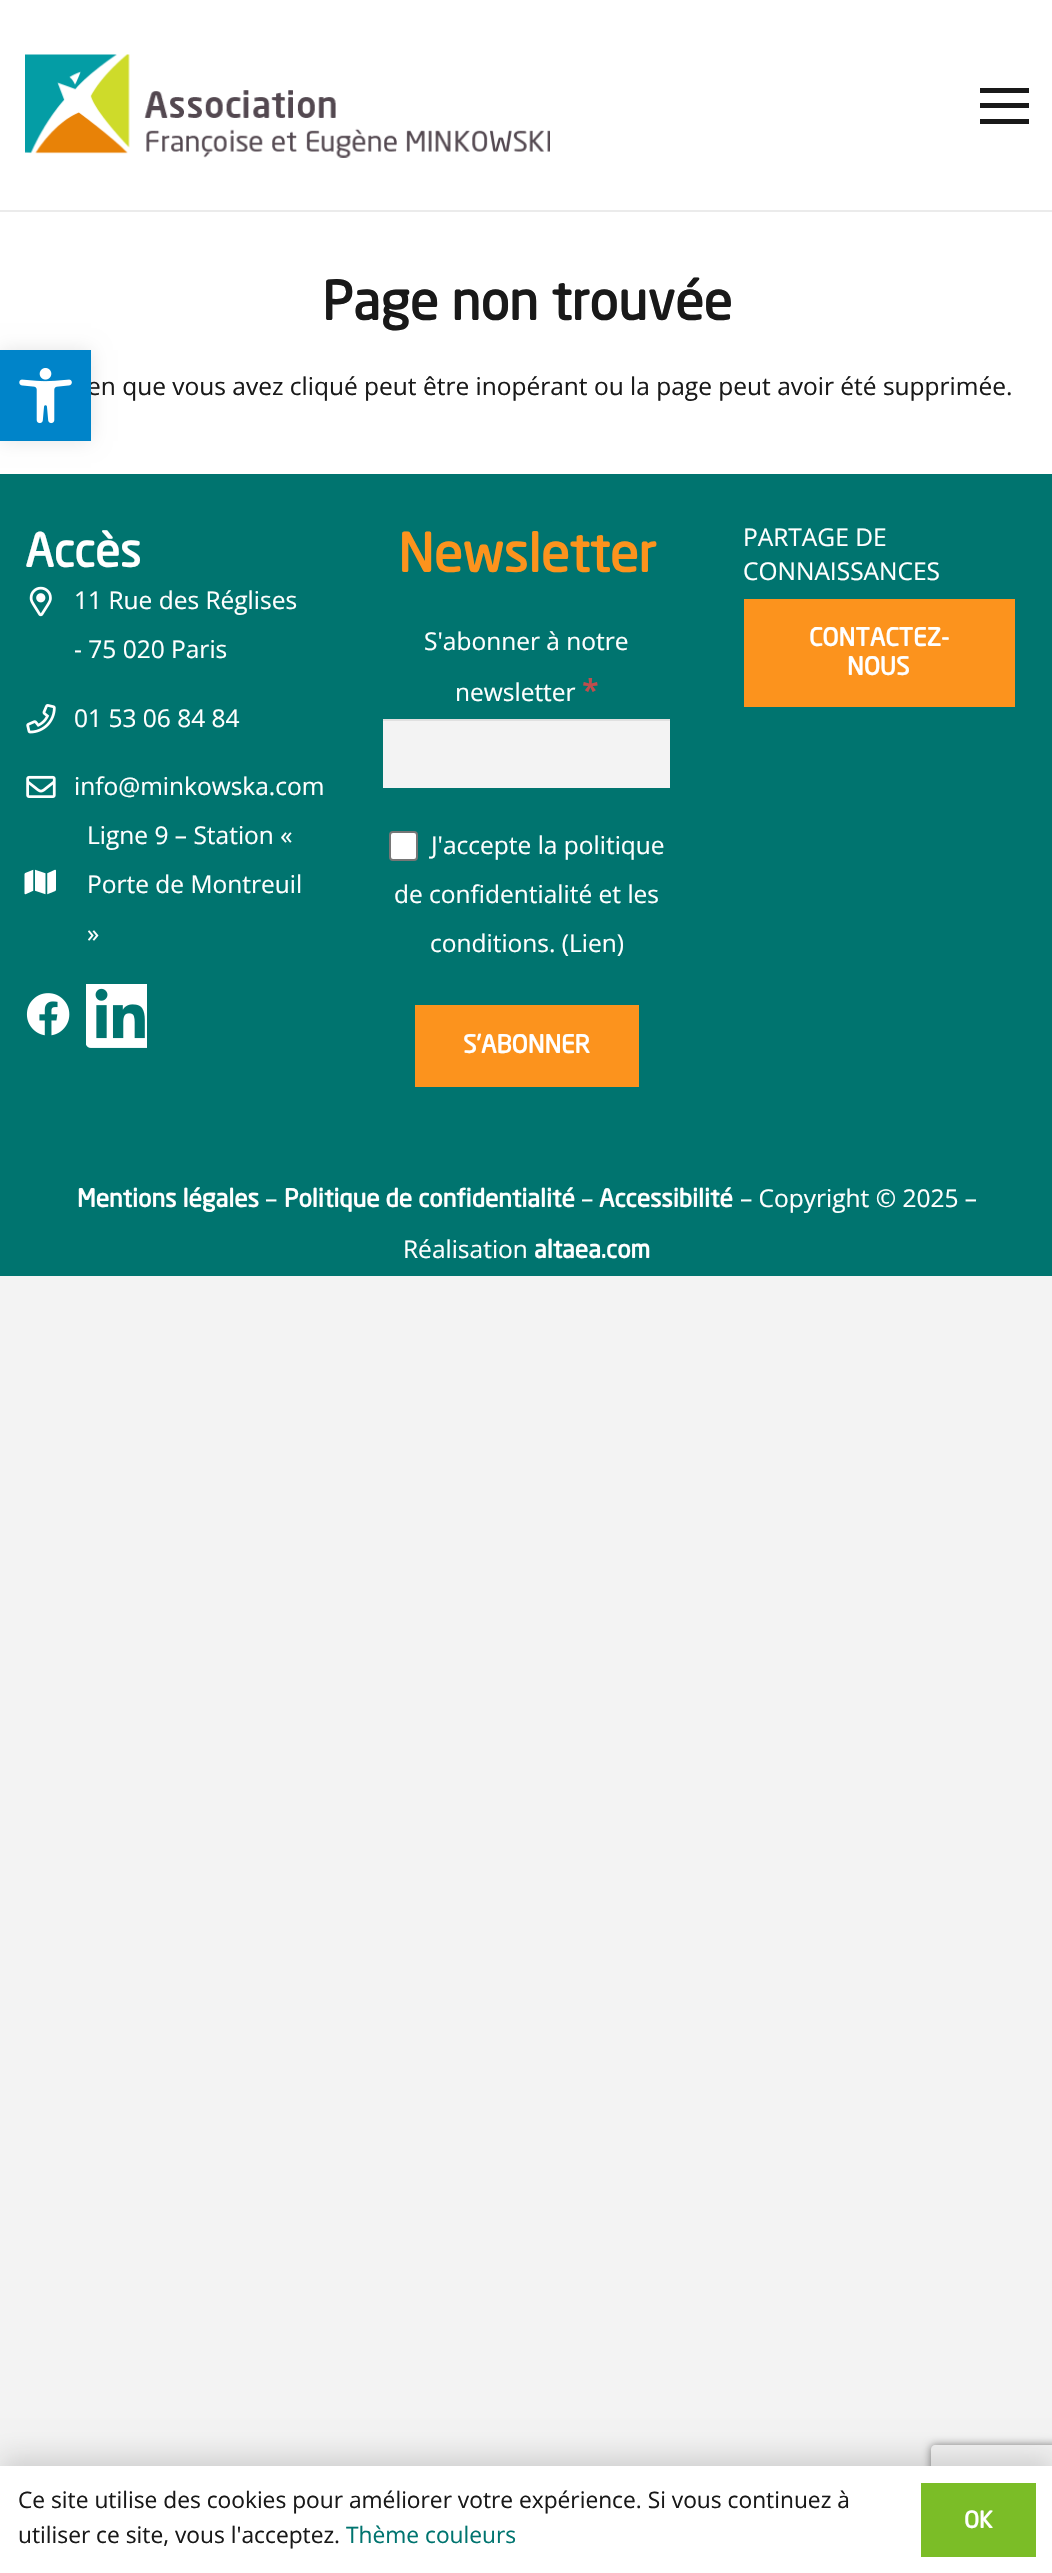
void draw(SkCanvas* canvas) {
    SkPaint paint;
    paint.setAntiAlias(true);
    auto face = [&](const char* family, int weight, float size, bool italic = false) {
        SkFontStyle style(weight, SkFontStyle::kNormal_Width,
            italic ? SkFontStyle::kItalic_Slant : SkFontStyle::kUpright_Slant);
        SkFont result(fontMgr->matchFamilyStyle(family, style), size);
        result.setSubpixel(true);
        return result;
    };
    auto write = [&](const char* s, float x, float y, const SkFont& font, SkColor color) {
        SkPaint ink(SkColor4f::FromColor(color));
        ink.setAntiAlias(true);
        canvas->drawString(s, x, y, font, ink);
    };
    auto block = [&](float x, float y, float w, float h, SkColor color) {
        SkPaint ink(SkColor4f::FromColor(color));
        ink.setAntiAlias(true);
        canvas->drawRect(SkRect::MakeXYWH(x, y, w, h), ink);
    };
    auto paste = [&](const char* path, float x, float y, float w, float h) {
        auto image = SkImages::DeferredFromEncodedData(SkData::MakeFromFileName(path));
        canvas->drawImageRect(image, SkRect::MakeXYWH(x, y, w, h), SkSamplingOptions());
    };
    canvas->clear(SkColorSetRGB(243, 243, 243));
    block(0, 0, 1052, 474, SK_ColorWHITE);
    paint.setColor(SkColorSetARGB(26, 0, 0, 0));
    paint.setMaskFilter(SkMaskFilter::MakeBlur(kNormal_SkBlurStyle, 9));
    canvas->drawRect(SkRect::MakeXYWH(0, 350, 91, 91), paint);
    paint.setMaskFilter(nullptr);
    auto kFont1 = face("Open Sans", 400, 24.5f);
    write("en que vous avez cliqué peut être inopérant ou la page peut avoir été supprimée.", 87, 395, kFont1, SkColorSetRGB(25, 25, 25));
    block(0, 350, 91, 91, SkColorSetRGB(0, 132, 201));
    paste("pic1.png", 19, 368, 53, 56);
    paint.setColor(SkColorSetRGB(235, 235, 235));
    canvas->drawPath(SkPathBuilder().moveTo(0, 210).lineTo(0, 212).lineTo(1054, 212).lineTo(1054, 2).lineTo(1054, 210).close().detach(), paint);
    paste("pic2.png", 25, 54, 525, 104);
    block(980, 103, 49, 5, SkColorSetRGB(25, 25, 25));
    block(980, 88, 49, 5, SkColorSetRGB(25, 25, 25));
    block(980, 119, 49, 5, SkColorSetRGB(25, 25, 25));
    auto kFont2 = face("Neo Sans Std", 700, 52.5f);
    write("Page non trouvée", 322, 320, kFont2, SkColorSetRGB(25, 25, 25));
    block(0, 474, 1052, 802, SkColorSetRGB(0, 116, 111));
    auto kFont3 = face("Neo Sans Std", 700, 45.5f);
    write("Accès", 25, 567, kFont3, SK_ColorWHITE);
    paste("pic3.png", 29, 586, 23, 31);
    write("11 Rue des Réglises", 74, 609, kFont1, SK_ColorWHITE);
    write("- 75 020 Paris", 74, 658, kFont1, SK_ColorWHITE);
    paste("pic4.png", 26, 704, 30, 30);
    write("01 53 06 84 84", 74, 727, kFont1, SK_ColorWHITE);
    paste("pic5.png", 26, 775, 30, 23);
    write("info@minkowska.com", 74, 795, kFont1, SK_ColorWHITE);
    paste("pic6.png", 24, 869, 32, 26);
    write("Ligne 9 – Station «", 87, 844, kFont1, SK_ColorWHITE);
    write("Porte de Montreuil", 87, 893, kFont1, SK_ColorWHITE);
    write("»", 87, 942, kFont1, SK_ColorWHITE);
    paste("pic7.png", 26, 993, 44, 43);
    paste("pic8.png", 86, 984, 61, 64);
    write("Newsletter", 398, 572, kFont2, SkColorSetRGB(252, 147, 29));
    write("S'abonner à notre", 424, 650, kFont1, SK_ColorWHITE);
    write("newsletter", 455, 701, kFont1, SK_ColorWHITE);
    auto kFont4 = face("Open Sans", 700, 29);
    write("*", 582, 701, kFont4, SkColorSetRGB(191, 77, 77));
    block(383, 721, 287, 67, SkColorSetRGB(243, 243, 243));
    block(383, 719, 287, 2, SkColorSetRGB(224, 224, 224));
    paint.setColor(SK_ColorWHITE);
    canvas->drawRoundRect(SkRect::MakeXYWH(390, 832, 27, 28), 3, 3, paint);
    paint.setStyle(SkPaint::kStroke_Style);
    paint.setStrokeWidth(2);
    paint.setColor(SkColorSetRGB(118, 118, 118));
    canvas->drawRoundRect(SkRect::MakeXYWH(390, 832, 27, 28), 3, 3, paint);
    write("J'accepte la politique", 431, 854, kFont1, SK_ColorWHITE);
    write("de confidentialité et les", 394, 903, kFont1, SK_ColorWHITE);
    write("conditions. (Lien)", 430, 952, kFont1, SK_ColorWHITE);
    block(415, 1005, 224, 82, SkColorSetRGB(252, 147, 29));
    auto kFont5 = face("Neo Sans Std", 700, 24.5f);
    write("S’ABONNER", 463, 1053, kFont5, SK_ColorWHITE);
    write("PARTAGE DE", 743, 546, kFont1, SK_ColorWHITE);
    write("CONNAISSANCES", 743, 580, kFont1, SK_ColorWHITE);
    block(744, 599, 271, 108, SkColorSetRGB(252, 147, 29));
    write("CONTACTEZ-", 809, 646, kFont5, SK_ColorWHITE);
    write("NOUS", 847, 675, kFont5, SK_ColorWHITE);
    write("Mentions légales", 77, 1207, kFont5, SK_ColorWHITE);
    write("–", 265, 1207, kFont1, SK_ColorWHITE);
    write("Politique de confidentialité", 284, 1207, kFont5, SK_ColorWHITE);
    write("–", 581, 1207, kFont1, SK_ColorWHITE);
    write("Accessibilité", 599, 1207, kFont5, SK_ColorWHITE);
    write("– Copyright © 2025 –", 740, 1207, kFont1, SK_ColorWHITE);
    write("Réalisation", 403, 1258, kFont1, SK_ColorWHITE);
    write("altaea.com", 534, 1258, kFont5, SK_ColorWHITE);
    canvas->save();
    canvas->clipPath(SkPathBuilder(SkPathFillType::kEvenOdd).moveTo(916, 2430).lineTo(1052, 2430).lineTo(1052, 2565).lineTo(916, 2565).close().moveTo(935, 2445).lineTo(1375, 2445).cubicTo(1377, 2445, 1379, 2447, 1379, 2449).lineTo(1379, 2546).cubicTo(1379, 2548, 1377, 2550, 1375, 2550).lineTo(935, 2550).cubicTo(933, 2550, 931, 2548, 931, 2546).lineTo(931, 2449).cubicTo(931, 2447, 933, 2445, 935, 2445).close().detach(), true);
    paint.setStyle(SkPaint::kFill_Style);
    paint.setColor(SkColorSetRGB(128, 128, 128));
    paint.setMaskFilter(SkMaskFilter::MakeBlur(kNormal_SkBlurStyle, 4.5f));
    canvas->drawRoundRect(SkRect::MakeXYWH(931, 2445, 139, 105), 4, 4, paint);
    paint.setMaskFilter(nullptr);
    canvas->restore();
    paint.setColor(SkColorSetARGB(38, 0, 0, 0));
    paint.setMaskFilter(SkMaskFilter::MakeBlur(kNormal_SkBlurStyle, 13));
    canvas->drawRect(SkRect::MakeXYWH(0, 2457, 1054, 109), paint);
    paint.setMaskFilter(nullptr);
    block(0, 2466, 1052, 107, SK_ColorWHITE);
    auto kFont6 = face("Open Sans", 400, 22.75f);
    write("Ce site utilise des cookies pour améliorer votre expérience. Si vous continuez à", 18, 2508, kFont6, SkColorSetRGB(25, 25, 25));
    write("utiliser ce site, vous l'acceptez.", 18, 2543, kFont6, SkColorSetRGB(25, 25, 25));
    write("Thème couleurs", 346, 2543, kFont6, SkColorSetRGB(0, 116, 111));
    block(921, 2483, 115, 74, SkColorSetRGB(123, 189, 39));
    auto kFont7 = face("Neo Sans Std", 700, 22.75f);
    write("OK", 964, 2528, kFont7, SK_ColorWHITE);
}
